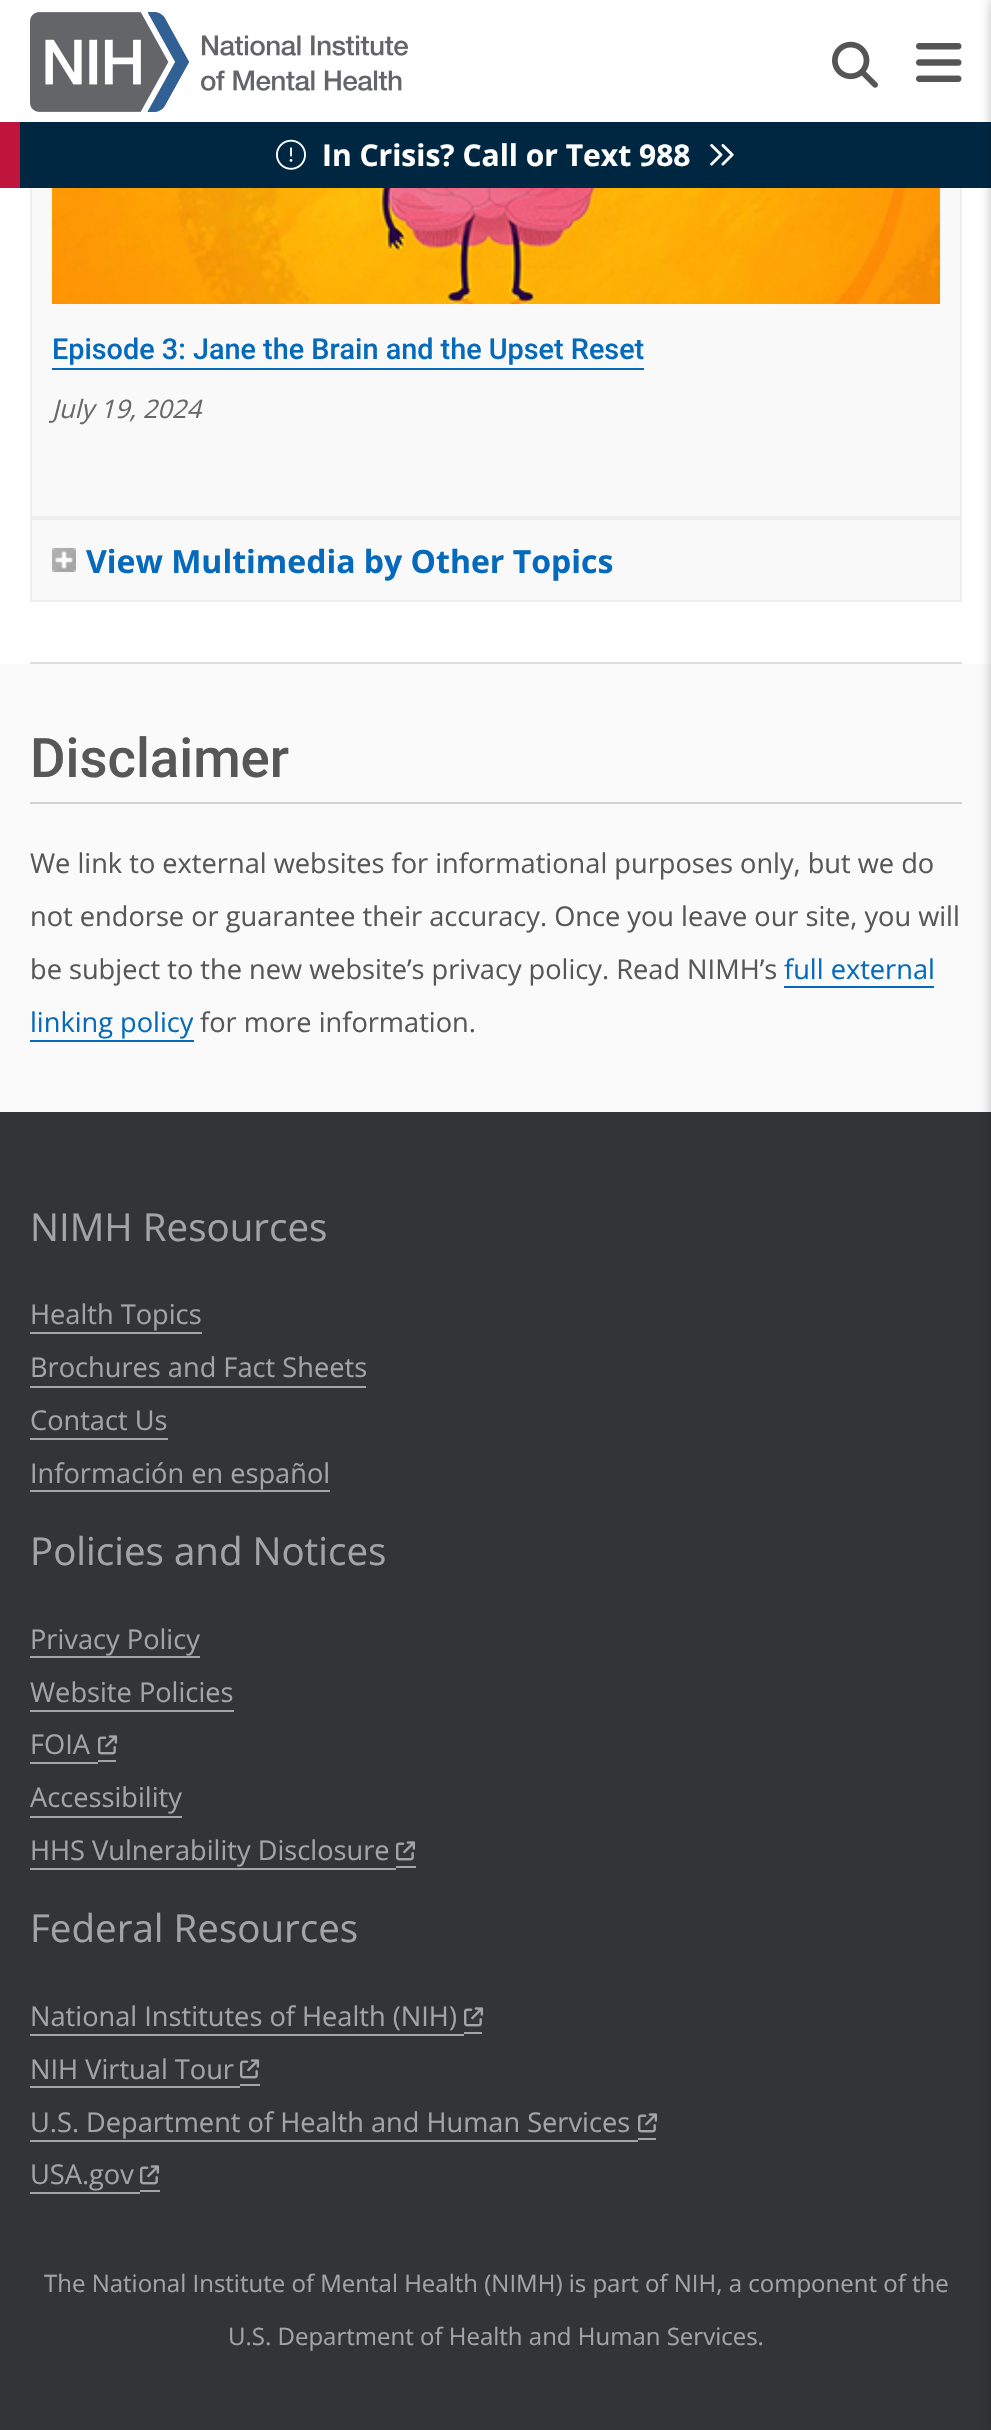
void draw(SkCanvas* canvas) {
    SkPaint paint;
    paint.setAntiAlias(true);
    auto face = [&](const char* family, int weight, float size, bool italic = false) {
        SkFontStyle style(weight, SkFontStyle::kNormal_Width,
            italic ? SkFontStyle::kItalic_Slant : SkFontStyle::kUpright_Slant);
        SkFont result(fontMgr->matchFamilyStyle(family, style), size);
        result.setSubpixel(true);
        return result;
    };
    auto write = [&](const char* s, float x, float y, const SkFont& font, SkColor color) {
        SkPaint ink(SkColor4f::FromColor(color));
        ink.setAntiAlias(true);
        canvas->drawString(s, x, y, font, ink);
    };
    auto block = [&](float x, float y, float w, float h, SkColor color) {
        SkPaint ink(SkColor4f::FromColor(color));
        ink.setAntiAlias(true);
        canvas->drawRect(SkRect::MakeXYWH(x, y, w, h), ink);
    };
    auto paste = [&](const char* path, float x, float y, float w, float h) {
        auto image = SkImages::DeferredFromEncodedData(SkData::MakeFromFileName(path));
        canvas->drawImageRect(image, SkRect::MakeXYWH(x, y, w, h), SkSamplingOptions());
    };
    canvas->clear(SK_ColorWHITE);
    block(32, 188, 928, 328, SkColorSetRGB(249, 249, 249));
    paint.setStyle(SkPaint::kStroke_Style);
    paint.setStrokeWidth(2);
    paint.setColor(SkColorSetRGB(238, 238, 238));
    canvas->drawRect(SkRect::MakeXYWH(31, -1, 930, 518), paint);
    block(30, 0, 932, 122, SK_ColorWHITE);
    paste("pic1.png", 30, 12, 378, 100);
    paste("pic2.png", 832, 41, 46, 47);
    paste("pic3.png", 916, 43, 46, 39);
    block(20, 122, 971, 66, SkColorSetRGB(0, 39, 66));
    block(0, 122, 20, 66, SkColorSetRGB(192, 20, 60));
    paste("pic4.png", 276, 139, 30, 31);
    auto kFont1 = face("Open Sans", 700, 30);
    write("In Crisis? Call or Text 988", 322, 166, kFont1, SK_ColorWHITE);
    paste("pic5.png", 710, 144, 24, 22);
    block(0, 664, 991, 448, SkColorSetRGB(250, 250, 250));
    block(0, 1112, 991, 1318, SkColorSetRGB(51, 52, 53));
    paint.setStyle(SkPaint::kFill_Style);
    paint.setColor(SkColorSetARGB(102, 0, 0, 0));
    paint.setMaskFilter(SkMaskFilter::MakeBlur(kNormal_SkBlurStyle, 7));
    canvas->drawRect(SkRect::MakeXYWH(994, 0, 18, 2430), paint);
    paint.setMaskFilter(nullptr);
    block(30, 662, 932, 2, SkColorSetRGB(221, 221, 221));
    paste("pic6.png", 52, 188, 888, 116);
    auto kFont2 = face("Roboto", 500, 28.8f);
    write("Episode 3: Jane the Brain and the Upset Reset", 52, 359, kFont2, SkColorSetRGB(6, 106, 188));
    block(52, 368, 592, 2, SkColorSetRGB(6, 106, 188));
    auto kFont3 = face("Open Sans", 400, 25.5f, true);
    write("July 19, 2024", 52, 418, kFont3, SkColorSetRGB(104, 104, 104));
    paint.setColor(SkColorSetRGB(249, 249, 249));
    canvas->drawRect(SkRect::MakeXYWH(31, 519, 930, 82), paint);
    paint.setStyle(SkPaint::kStroke_Style);
    paint.setColor(SkColorSetRGB(238, 238, 238));
    canvas->drawRect(SkRect::MakeXYWH(31, 519, 930, 82), paint);
    paste("pic7.png", 52, 548, 24, 24);
    auto kFont4 = face("Open Sans", 700, 32);
    write("View Multimedia by Other Topics", 86, 573, kFont4, SkColorSetRGB(6, 106, 188));
    block(30, 802, 932, 2, SkColorSetRGB(209, 209, 209));
    auto kFont5 = face("Roboto", 500, 54.5f);
    write("Disclaimer", 30, 777, kFont5, SkColorSetRGB(87, 87, 87));
    auto kFont6 = face("Open Sans", 400, 27.2f);
    write("We link to external websites for informational purposes only, but we do", 30, 873, kFont6, SkColorSetRGB(87, 87, 87));
    write("not endorse or guarantee their accuracy. Once you leave our site, you will", 30, 926, kFont6, SkColorSetRGB(87, 87, 87));
    write("be subject to the new website’s privacy policy. Read NIMH’s", 30, 979, kFont6, SkColorSetRGB(87, 87, 87));
    write("full external", 784, 979, kFont6, SkColorSetRGB(6, 106, 188));
    block(784, 986, 150, 2, SkColorSetRGB(6, 106, 188));
    write("linking policy", 30, 1032, kFont6, SkColorSetRGB(6, 106, 188));
    block(30, 1040, 164, 2, SkColorSetRGB(6, 106, 188));
    write("for more information.", 200, 1032, kFont6, SkColorSetRGB(87, 87, 87));
    auto kFont7 = face("Open Sans", 400, 38.5f);
    write("NIMH Resources", 30, 1241, kFont7, SkColorSetRGB(164, 164, 164));
    write("Health Topics", 30, 1324, kFont6, SkColorSetRGB(164, 164, 164));
    block(30, 1332, 172, 2, SkColorSetRGB(164, 164, 164));
    write("Brochures and Fact Sheets", 30, 1377, kFont6, SkColorSetRGB(164, 164, 164));
    block(30, 1386, 336, 2, SkColorSetRGB(164, 164, 164));
    write("Contact Us", 30, 1430, kFont6, SkColorSetRGB(164, 164, 164));
    block(30, 1438, 138, 2, SkColorSetRGB(164, 164, 164));
    write("Información en español", 30, 1483, kFont6, SkColorSetRGB(164, 164, 164));
    block(30, 1490, 300, 2, SkColorSetRGB(164, 164, 164));
    write("Policies and Notices", 30, 1565, kFont7, SkColorSetRGB(164, 164, 164));
    write("Privacy Policy", 30, 1649, kFont6, SkColorSetRGB(164, 164, 164));
    block(30, 1656, 170, 2, SkColorSetRGB(164, 164, 164));
    write("Website Policies", 30, 1702, kFont6, SkColorSetRGB(164, 164, 164));
    block(30, 1710, 204, 2, SkColorSetRGB(164, 164, 164));
    write("FOIA", 30, 1754, kFont6, SkColorSetRGB(164, 164, 164));
    block(30, 1762, 68, 2, SkColorSetRGB(164, 164, 164));
    block(98, 1760, 18, 2, SkColorSetRGB(164, 164, 164));
    paste("pic8.png", 98, 1735, 20, 20);
    write("Accessibility", 30, 1807, kFont6, SkColorSetRGB(164, 164, 164));
    block(30, 1816, 152, 2, SkColorSetRGB(164, 164, 164));
    write("HHS Vulnerability Disclosure", 30, 1860, kFont6, SkColorSetRGB(164, 164, 164));
    block(30, 1868, 366, 2, SkColorSetRGB(164, 164, 164));
    block(396, 1866, 20, 2, SkColorSetRGB(164, 164, 164));
    paste("pic8.png", 396, 1841, 20, 20);
    write("Federal Resources", 30, 1942, kFont7, SkColorSetRGB(164, 164, 164));
    write("National Institutes of Health (NIH)", 30, 2026, kFont6, SkColorSetRGB(164, 164, 164));
    block(30, 2034, 434, 2, SkColorSetRGB(164, 164, 164));
    block(464, 2032, 18, 2, SkColorSetRGB(164, 164, 164));
    paste("pic8.png", 464, 2007, 20, 20);
    write("NIH Virtual Tour", 30, 2079, kFont6, SkColorSetRGB(164, 164, 164));
    block(30, 2086, 210, 2, SkColorSetRGB(164, 164, 164));
    block(240, 2084, 20, 2, SkColorSetRGB(164, 164, 164));
    paste("pic8.png", 240, 2059, 20, 20);
    write("U.S. Department of Health and Human Services", 30, 2132, kFont6, SkColorSetRGB(164, 164, 164));
    block(30, 2140, 608, 2, SkColorSetRGB(164, 164, 164));
    block(638, 2138, 18, 2, SkColorSetRGB(164, 164, 164));
    paste("pic8.png", 638, 2113, 20, 20);
    write("USA.gov", 30, 2184, kFont6, SkColorSetRGB(164, 164, 164));
    block(30, 2192, 110, 2, SkColorSetRGB(164, 164, 164));
    block(140, 2190, 20, 2, SkColorSetRGB(164, 164, 164));
    paste("pic8.png", 140, 2165, 20, 20);
    auto kFont8 = face("Open Sans", 400, 24);
    write("The National Institute of Mental Health (NIMH) is part of NIH, a component of the", 44, 2292, kFont8, SkColorSetRGB(164, 164, 164));
    write("U.S. Department of Health and Human Services.", 228, 2345, kFont8, SkColorSetRGB(164, 164, 164));
}
